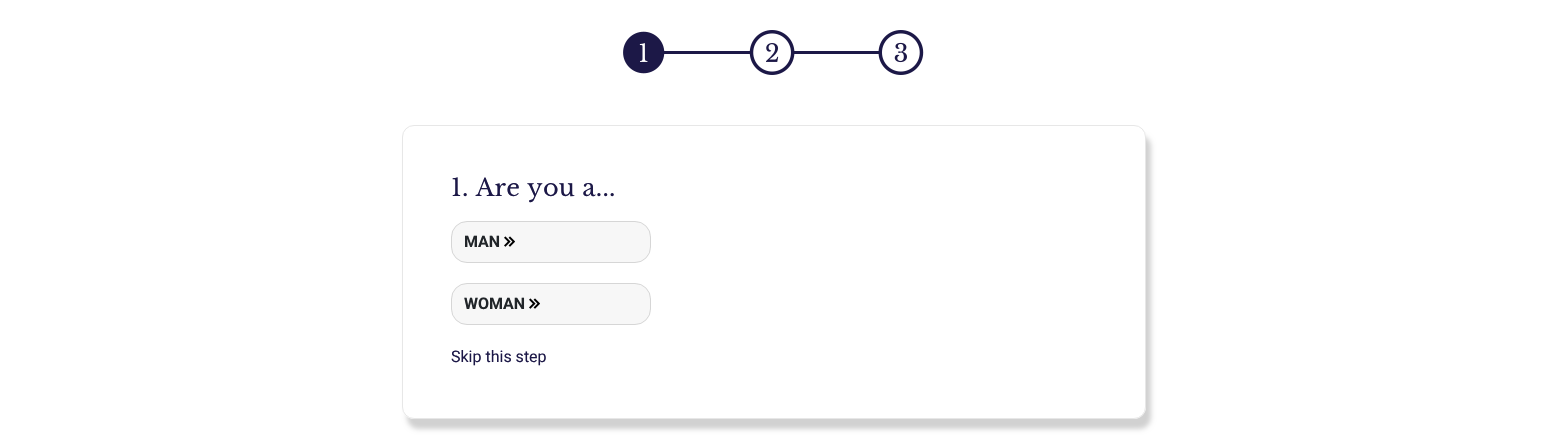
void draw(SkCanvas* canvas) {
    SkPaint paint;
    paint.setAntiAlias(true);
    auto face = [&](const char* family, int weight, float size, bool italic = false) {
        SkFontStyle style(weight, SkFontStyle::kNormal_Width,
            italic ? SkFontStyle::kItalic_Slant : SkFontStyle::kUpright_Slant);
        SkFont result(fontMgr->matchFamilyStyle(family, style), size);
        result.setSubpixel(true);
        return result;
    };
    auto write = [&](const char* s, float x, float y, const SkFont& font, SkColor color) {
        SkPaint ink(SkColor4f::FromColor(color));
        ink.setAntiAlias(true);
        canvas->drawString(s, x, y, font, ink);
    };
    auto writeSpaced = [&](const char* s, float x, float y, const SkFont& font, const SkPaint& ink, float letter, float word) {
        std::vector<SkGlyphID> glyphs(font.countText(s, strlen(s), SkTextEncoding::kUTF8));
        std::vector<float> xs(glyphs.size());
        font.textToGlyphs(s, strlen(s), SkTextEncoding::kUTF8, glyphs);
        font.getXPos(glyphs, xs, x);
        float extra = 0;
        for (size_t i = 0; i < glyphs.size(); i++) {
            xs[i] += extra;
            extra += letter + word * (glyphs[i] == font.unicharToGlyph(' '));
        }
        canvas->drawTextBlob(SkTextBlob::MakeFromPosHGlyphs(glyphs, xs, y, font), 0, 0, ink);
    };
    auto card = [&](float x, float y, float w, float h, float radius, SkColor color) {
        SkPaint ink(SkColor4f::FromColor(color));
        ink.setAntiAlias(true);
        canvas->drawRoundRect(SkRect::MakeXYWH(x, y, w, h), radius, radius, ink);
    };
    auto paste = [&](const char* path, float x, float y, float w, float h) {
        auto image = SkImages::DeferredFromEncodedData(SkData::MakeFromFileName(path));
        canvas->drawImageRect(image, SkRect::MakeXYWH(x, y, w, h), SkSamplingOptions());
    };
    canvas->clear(SK_ColorWHITE);
    paste("pic1.png", 623, 30, 301, 45);
    canvas->save();
    canvas->clipPath(SkPathBuilder(SkPathFillType::kEvenOdd).moveTo(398, 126).lineTo(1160, 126).lineTo(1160, 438).lineTo(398, 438).close().moveTo(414, 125).lineTo(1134, 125).cubicTo(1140.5f, 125, 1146, 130.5f, 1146, 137).lineTo(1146, 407).cubicTo(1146, 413.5f, 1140.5f, 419, 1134, 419).lineTo(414, 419).cubicTo(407.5f, 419, 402, 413.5f, 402, 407).lineTo(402, 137).cubicTo(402, 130.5f, 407.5f, 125, 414, 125).close().detach(), true);
    paint.setColor(SkColorSetRGB(209, 209, 209));
    paint.setMaskFilter(SkMaskFilter::MakeBlur(kNormal_SkBlurStyle, 2.5f));
    canvas->drawRoundRect(SkRect::MakeXYWH(407, 135, 744, 294), 12, 12, paint);
    paint.setMaskFilter(nullptr);
    canvas->restore();
    paint.setStyle(SkPaint::kStroke_Style);
    paint.setStrokeWidth(1);
    paint.setColor(SkColorSetRGB(231, 231, 231));
    canvas->drawRoundRect(SkRect::MakeXYWH(402.5f, 125.5f, 743, 293), 11.5f, 11.5f, paint);
    auto kFont1 = face("Libre Baskerville", 400, 24);
    paint.setStyle(SkPaint::kFill_Style);
    paint.setColor(SkColorSetRGB(28, 24, 71));
    writeSpaced("1. Are you a...", 451, 196, kFont1, paint, 0.25f, 0);
    card(451, 221, 200, 42, 16, SkColorSetRGB(247, 247, 247));
    paint.setStyle(SkPaint::kStroke_Style);
    paint.setColor(SkColorSetARGB(77, 140, 140, 140));
    canvas->drawRoundRect(SkRect::MakeXYWH(451.5f, 221.5f, 199, 41), 15.5f, 15.5f, paint);
    auto kFont2 = face("Roboto", 700, 16);
    write("MAN", 464, 247, kFont2, SkColorSetRGB(33, 37, 41));
    paste("pic2.png", 504, 236, 11, 11);
    card(451, 283, 200, 42, 16, SkColorSetRGB(247, 247, 247));
    canvas->drawRoundRect(SkRect::MakeXYWH(451.5f, 283.5f, 199, 41), 15.5f, 15.5f, paint);
    write("WOMAN", 464, 309, kFont2, SkColorSetRGB(33, 37, 41));
    paste("pic2.png", 529, 298, 11, 11);
    auto kFont3 = face("Roboto", 400, 16);
    write("Skip this step", 451, 362, kFont3, SkColorSetRGB(28, 24, 71));
}
